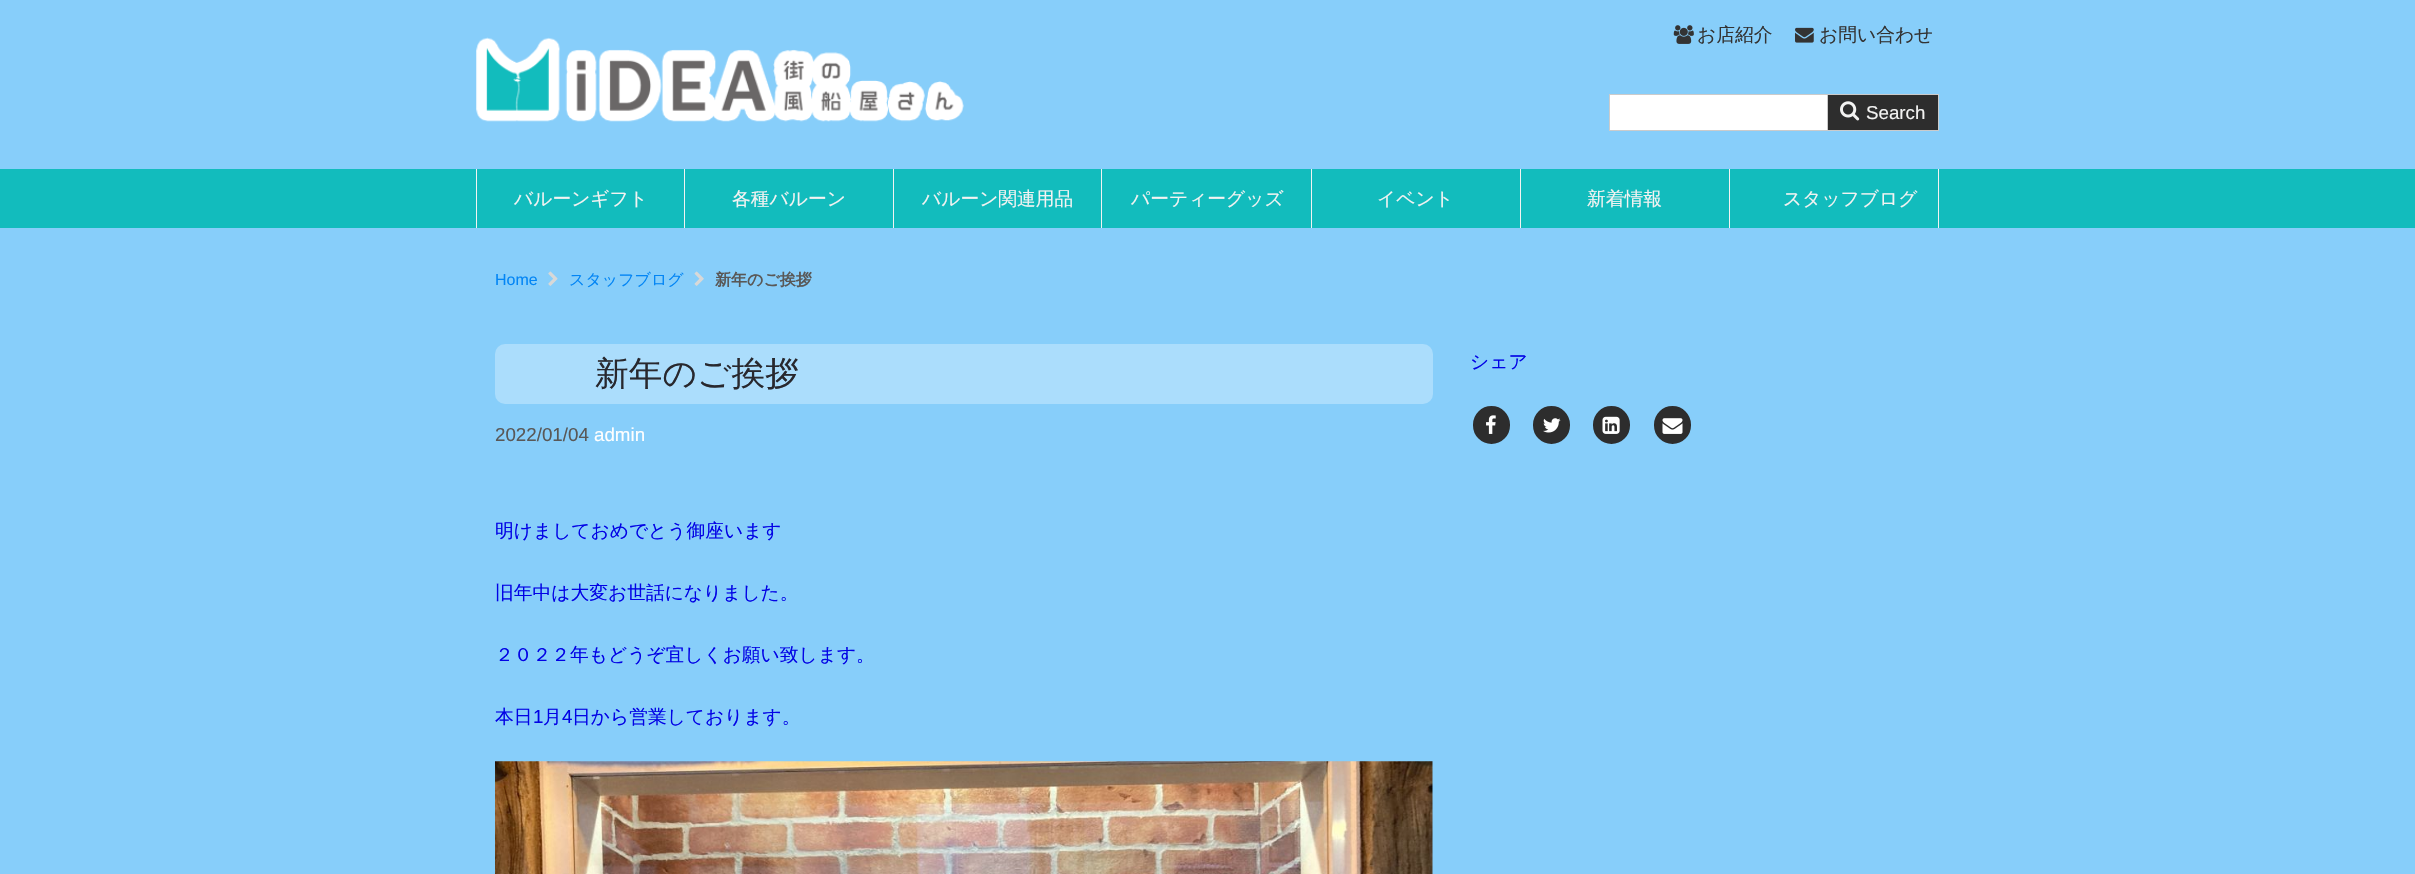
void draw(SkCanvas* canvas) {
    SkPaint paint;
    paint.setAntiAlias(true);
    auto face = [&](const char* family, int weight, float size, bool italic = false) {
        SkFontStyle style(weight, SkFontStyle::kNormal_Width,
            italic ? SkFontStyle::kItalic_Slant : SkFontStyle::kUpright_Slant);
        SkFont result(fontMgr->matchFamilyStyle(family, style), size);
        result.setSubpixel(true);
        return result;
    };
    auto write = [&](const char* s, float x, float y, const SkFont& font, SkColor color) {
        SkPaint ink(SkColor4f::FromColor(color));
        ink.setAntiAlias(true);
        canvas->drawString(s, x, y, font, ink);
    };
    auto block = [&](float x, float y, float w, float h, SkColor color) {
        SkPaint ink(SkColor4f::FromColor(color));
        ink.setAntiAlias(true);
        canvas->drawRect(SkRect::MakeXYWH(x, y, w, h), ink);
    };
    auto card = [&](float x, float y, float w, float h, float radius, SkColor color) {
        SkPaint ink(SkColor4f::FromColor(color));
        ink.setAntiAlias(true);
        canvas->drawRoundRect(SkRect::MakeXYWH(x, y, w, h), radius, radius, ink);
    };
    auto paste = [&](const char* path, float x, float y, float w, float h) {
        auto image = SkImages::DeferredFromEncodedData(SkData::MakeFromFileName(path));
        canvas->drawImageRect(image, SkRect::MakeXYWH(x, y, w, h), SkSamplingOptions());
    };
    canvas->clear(SkColorSetRGB(135, 206, 250));
    paste("pic1.png", 476, 37, 488, 85);
    paste("pic2.png", 1673, 25, 21, 19);
    auto kFont1 = face("WenQuanYi Zen Hei", 500, 18.75f);
    write("お店紹介", 1697, 41, kFont1, SkColorSetRGB(51, 51, 51));
    paste("pic3.png", 1795, 27, 19, 16);
    write("お問い合わせ", 1819, 41, kFont1, SkColorSetRGB(51, 51, 51));
    paint.setColor(SK_ColorWHITE);
    canvas->drawRect(SkRect::MakeXYWH(1609.5f, 94.5f, 218, 36), paint);
    paint.setStyle(SkPaint::kStroke_Style);
    paint.setStrokeWidth(1);
    paint.setColor(SkColorSetRGB(203, 203, 203));
    canvas->drawRect(SkRect::MakeXYWH(1609.5f, 94.5f, 218, 36), paint);
    block(1828, 95, 110, 35, SkColorSetRGB(45, 45, 45));
    paste("pic4.png", 1840, 101, 20, 20);
    block(1828, 94, 111, 1, SkColorSetRGB(203, 203, 203));
    block(1938, 94, 1, 37, SkColorSetRGB(203, 203, 203));
    block(1828, 130, 111, 1, SkColorSetRGB(203, 203, 203));
    auto kFont2 = face("Liberation Sans", 400, 18.75f);
    write("Search", 1866, 119, kFont2, SkColorSetRGB(243, 243, 242));
    block(0, 169, 2415, 59, SkColorSetRGB(18, 188, 189));
    block(684, 169, 1, 59, SkColorSetRGB(243, 243, 242));
    block(476, 169, 1, 59, SkColorSetRGB(243, 243, 242));
    write("バルーンギフト", 514, 205, kFont1, SkColorSetRGB(243, 243, 242));
    block(893, 169, 1, 59, SkColorSetRGB(243, 243, 242));
    write("各種バルーン", 732, 205, kFont1, SkColorSetRGB(243, 243, 242));
    block(1101, 169, 1, 59, SkColorSetRGB(243, 243, 242));
    write("バルーン関連用品", 922, 205, kFont1, SkColorSetRGB(243, 243, 242));
    block(1311, 169, 1, 59, SkColorSetRGB(243, 243, 242));
    write("パーティーグッズ", 1131, 205, kFont1, SkColorSetRGB(243, 243, 242));
    block(1520, 169, 1, 59, SkColorSetRGB(243, 243, 242));
    write("イベント", 1377, 205, kFont1, SkColorSetRGB(243, 243, 242));
    block(1729, 169, 1, 59, SkColorSetRGB(243, 243, 242));
    write("新着情報", 1587, 205, kFont1, SkColorSetRGB(243, 243, 242));
    block(1938, 169, 1, 59, SkColorSetRGB(243, 243, 242));
    write("スタッフブログ", 1783, 205, kFont1, SkColorSetRGB(243, 243, 242));
    auto kFont3 = face("Liberation Sans", 400, 16);
    write("Home", 495, 285, kFont3, SkColorSetRGB(2, 133, 245));
    paste("pic5.png", 548, 271, 10, 15);
    auto kFont4 = face("WenQuanYi Zen Hei", 500, 16);
    write("スタッフブログ", 569, 285, kFont4, SkColorSetRGB(2, 133, 245));
    paste("pic6.png", 694, 271, 10, 15);
    auto kFont5 = face("WenQuanYi Zen Hei", 700, 16);
    write("新年のご挨拶", 715, 285, kFont5, SkColorSetRGB(89, 88, 87));
    card(495, 344, 938, 60, 10, SkColorSetRGB(171, 221, 252));
    auto kFont6 = face("WenQuanYi Zen Hei", 500, 33.75f);
    write("新年のご挨拶", 595, 385, kFont6, SkColorSetRGB(40, 40, 46));
    write("2022/01/04", 495, 441, kFont2, SkColorSetRGB(89, 88, 87));
    write("admin", 594, 441, kFont2, SK_ColorWHITE);
    write("明けましておめでとう御座います", 495, 537, kFont1, SkColorSetRGB(2, 2, 229));
    write("旧年中は大変お世話になりました。", 495, 599, kFont1, SkColorSetRGB(2, 2, 229));
    write("２０２２年もどうぞ宜しくお願い致します。", 495, 661, kFont1, SkColorSetRGB(2, 2, 229));
    write("本日", 495, 723, kFont1, SkColorSetRGB(2, 2, 229));
    write("1", 533, 723, kFont2, SkColorSetRGB(2, 2, 229));
    write("月", 543, 723, kFont1, SkColorSetRGB(2, 2, 229));
    write("4", 562, 723, kFont2, SkColorSetRGB(2, 2, 229));
    write("日から営業しております。", 572, 723, kFont1, SkColorSetRGB(2, 2, 229));
    paste("pic7.png", 495, 761, 938, 113);
    write("シェア", 1470, 368, kFont1, SkColorSetRGB(2, 2, 229));
    paint.setStyle(SkPaint::kFill_Style);
    paint.setColor(SkColorSetRGB(45, 45, 45));
    canvas->drawRoundRect(SkRect::MakeXYWH(1474.5f, 407.5f, 34, 35), 17, 17, paint);
    paint.setStyle(SkPaint::kStroke_Style);
    paint.setStrokeWidth(3);
    canvas->drawRoundRect(SkRect::MakeXYWH(1474.5f, 407.5f, 34, 35), 17, 17, paint);
    paste("pic8.png", 1486, 415, 10, 19);
    paint.setStyle(SkPaint::kFill_Style);
    canvas->drawRoundRect(SkRect::MakeXYWH(1534.5f, 407.5f, 34, 35), 17, 17, paint);
    paint.setStyle(SkPaint::kStroke_Style);
    canvas->drawRoundRect(SkRect::MakeXYWH(1534.5f, 407.5f, 34, 35), 17, 17, paint);
    paste("pic9.png", 1543, 418, 18, 15);
    paint.setStyle(SkPaint::kFill_Style);
    canvas->drawRoundRect(SkRect::MakeXYWH(1594.5f, 407.5f, 34, 35), 17, 17, paint);
    paint.setStyle(SkPaint::kStroke_Style);
    canvas->drawRoundRect(SkRect::MakeXYWH(1594.5f, 407.5f, 34, 35), 17, 17, paint);
    paste("pic10.png", 1602, 416, 18, 18);
    paint.setStyle(SkPaint::kFill_Style);
    canvas->drawRoundRect(SkRect::MakeXYWH(1655.5f, 407.5f, 34, 35), 17, 17, paint);
    paint.setStyle(SkPaint::kStroke_Style);
    canvas->drawRoundRect(SkRect::MakeXYWH(1655.5f, 407.5f, 34, 35), 17, 17, paint);
    paste("pic11.png", 1662, 418, 21, 16);
}
